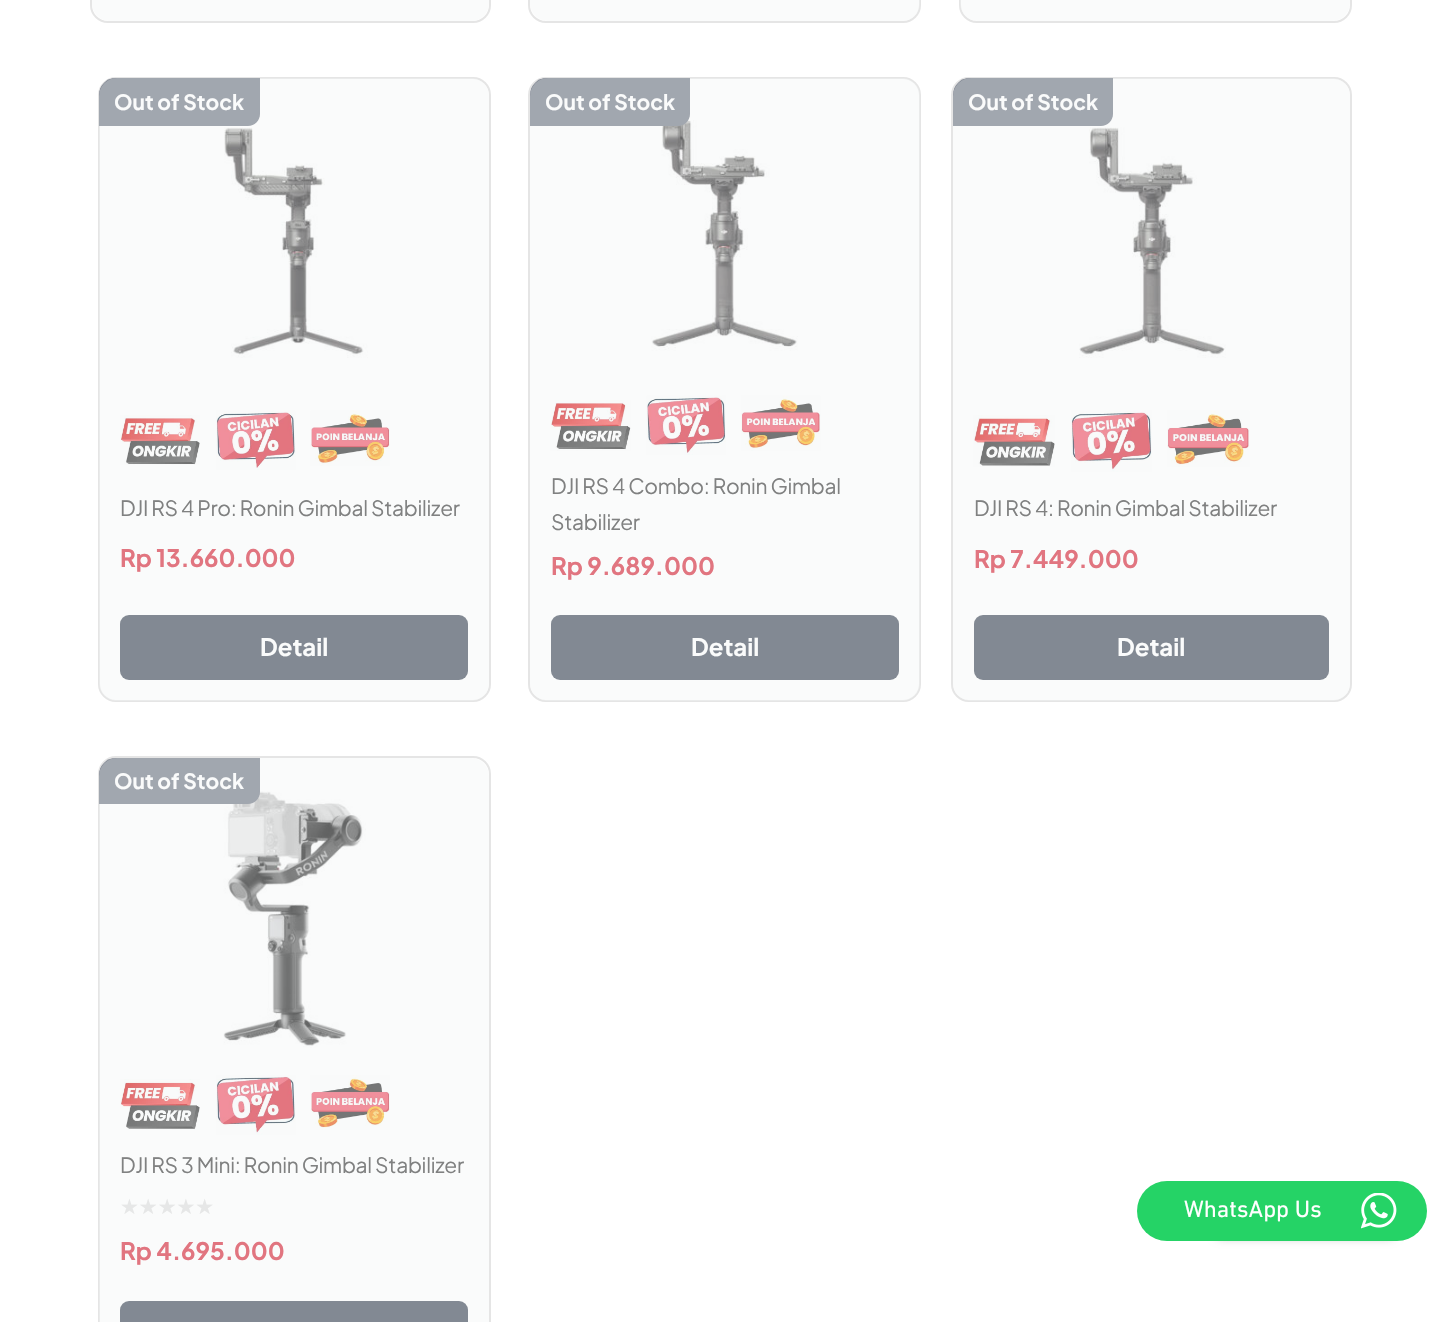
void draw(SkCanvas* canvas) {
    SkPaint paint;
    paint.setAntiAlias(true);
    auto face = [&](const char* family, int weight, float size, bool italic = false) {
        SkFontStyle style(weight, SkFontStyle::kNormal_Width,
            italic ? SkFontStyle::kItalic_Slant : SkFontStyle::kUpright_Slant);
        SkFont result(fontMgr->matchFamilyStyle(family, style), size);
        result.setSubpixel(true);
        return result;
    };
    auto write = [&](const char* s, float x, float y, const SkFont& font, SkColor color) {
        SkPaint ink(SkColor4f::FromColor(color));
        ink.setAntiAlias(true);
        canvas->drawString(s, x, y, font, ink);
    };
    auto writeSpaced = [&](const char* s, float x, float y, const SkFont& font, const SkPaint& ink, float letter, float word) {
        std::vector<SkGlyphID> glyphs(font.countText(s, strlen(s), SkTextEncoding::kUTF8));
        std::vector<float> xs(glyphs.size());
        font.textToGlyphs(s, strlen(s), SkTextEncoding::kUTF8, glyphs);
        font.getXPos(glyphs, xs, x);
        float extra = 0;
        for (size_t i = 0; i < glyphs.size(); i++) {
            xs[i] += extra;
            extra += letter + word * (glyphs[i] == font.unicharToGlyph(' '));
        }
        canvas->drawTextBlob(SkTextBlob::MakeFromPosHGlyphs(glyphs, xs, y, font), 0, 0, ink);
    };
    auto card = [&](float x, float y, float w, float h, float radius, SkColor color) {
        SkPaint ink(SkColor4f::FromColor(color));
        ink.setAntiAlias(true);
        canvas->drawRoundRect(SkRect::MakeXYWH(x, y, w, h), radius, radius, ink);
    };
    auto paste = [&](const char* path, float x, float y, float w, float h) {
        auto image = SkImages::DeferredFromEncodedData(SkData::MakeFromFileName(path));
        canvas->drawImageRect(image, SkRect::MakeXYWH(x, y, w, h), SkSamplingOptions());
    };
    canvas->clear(SK_ColorWHITE);
    paint.setStyle(SkPaint::kStroke_Style);
    paint.setStrokeWidth(2);
    paint.setColor(SkColorSetRGB(229, 229, 229));
    canvas->drawRoundRect(SkRect::MakeXYWH(91, -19, 399, 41), 17, 17, paint);
    canvas->save();
    canvas->clipPath(SkPathBuilder().moveTo(109, -601).lineTo(472, -601).cubicTo(481.5f, -601, 489, -593.5f, 489, -584).lineTo(489, 4).cubicTo(489, 13.5f, 481.5f, 21, 472, 21).lineTo(109, 21).cubicTo(99.5f, 21, 92, 13.5f, 92, 4).lineTo(92, -584).cubicTo(92, -593.5f, 99.5f, -601, 109, -601).close().detach(), true);
    card(92, -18, 397, 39, 18, SkColorSetRGB(250, 251, 251));
    canvas->restore();
    canvas->drawRoundRect(SkRect::MakeXYWH(529, -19, 391, 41), 17, 17, paint);
    canvas->save();
    canvas->clipPath(SkPathBuilder().moveTo(547, -601).lineTo(903, -601).cubicTo(912.5f, -601, 920, -593.5f, 920, -584).lineTo(920, 4).cubicTo(920, 13.5f, 912.5f, 21, 903, 21).lineTo(547, 21).cubicTo(537.5f, 21, 530, 13.5f, 530, 4).lineTo(530, -584).cubicTo(530, -593.5f, 537.5f, -601, 547, -601).close().detach(), true);
    card(530, -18, 390, 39, 18, SkColorSetARGB(102, 243, 244, 246));
    canvas->restore();
    canvas->drawRoundRect(SkRect::MakeXYWH(960, -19, 391, 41), 17, 17, paint);
    canvas->save();
    canvas->clipPath(SkPathBuilder().moveTo(977, -601).lineTo(1333, -601).cubicTo(1342.5f, -601, 1350, -593.5f, 1350, -584).lineTo(1350, 4).cubicTo(1350, 13.5f, 1342.5f, 21, 1333, 21).lineTo(977, 21).cubicTo(967.5f, 21, 960, 13.5f, 960, 4).lineTo(960, -584).cubicTo(960, -593.5f, 967.5f, -601, 977, -601).close().detach(), true);
    card(960, -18, 390, 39, 18, SkColorSetARGB(102, 243, 244, 246));
    canvas->restore();
    canvas->drawRoundRect(SkRect::MakeXYWH(99, 78, 391, 623), 17, 17, paint);
    paint.setStyle(SkPaint::kFill_Style);
    paint.setColor(SkColorSetRGB(107, 114, 128));
    canvas->drawPath(SkPathBuilder().moveTo(116, 78).lineTo(260, 78).lineTo(260, 114).cubicTo(260, 120.5f, 254.5f, 126, 248, 126).lineTo(99, 126).lineTo(99, 95).cubicTo(99, 85.5f, 106.5f, 78, 116, 78).close().detach(), paint);
    auto kFont1 = face("Plus Jakarta Sans", 700, 21);
    write("Out of Stock", 114, 110, kFont1, SK_ColorWHITE);
    paste("pic1.png", 224, 127, 144, 231);
    paste("pic2.png", 120, 415, 80, 50);
    paste("pic3.png", 216, 410, 80, 60);
    paste("pic4.png", 310, 410, 80, 56);
    auto kFont2 = face("Plus Jakarta Sans", 400, 21);
    paint.setColor(SkColorSetRGB(51, 51, 51));
    writeSpaced("DJI RS 4 Pro: Ronin Gimbal Stabilizer", 120, 516, kFont2, paint, -0.3f, 0);
    auto kFont3 = face("Plus Jakarta Sans", 700, 24);
    write("Rp 13.660.000", 120, 567, kFont3, SkColorSetRGB(214, 31, 49));
    card(120, 615, 348, 65, 9, SkColorSetRGB(55, 65, 81));
    write("Detail", 260, 656, kFont3, SK_ColorWHITE);
    canvas->save();
    canvas->clipPath(SkPathBuilder().moveTo(116, 78).lineTo(472, 78).cubicTo(481.5f, 78, 489, 85.5f, 489, 95).lineTo(489, 684).cubicTo(489, 693.5f, 481.5f, 701, 472, 701).lineTo(116, 701).cubicTo(106.5f, 701, 99, 693.5f, 99, 684).lineTo(99, 95).cubicTo(99, 85.5f, 106.5f, 78, 116, 78).close().detach(), true);
    card(99, 78, 390, 623, 18, SkColorSetARGB(102, 243, 244, 246));
    canvas->restore();
    paint.setStyle(SkPaint::kStroke_Style);
    paint.setColor(SkColorSetRGB(229, 229, 229));
    canvas->drawRoundRect(SkRect::MakeXYWH(529, 78, 391, 623), 17, 17, paint);
    paste("pic5.png", 651, 120, 147, 231);
    paint.setStyle(SkPaint::kFill_Style);
    paint.setColor(SkColorSetRGB(107, 114, 128));
    canvas->drawPath(SkPathBuilder().moveTo(547, 78).lineTo(690, 78).lineTo(690, 114).cubicTo(690, 120.5f, 684.5f, 126, 678, 126).lineTo(530, 126).lineTo(530, 95).cubicTo(530, 85.5f, 537.5f, 78, 547, 78).close().detach(), paint);
    write("Out of Stock", 545, 110, kFont1, SK_ColorWHITE);
    paste("pic6.png", 550, 400, 81, 51);
    paste("pic7.png", 646, 395, 80, 60);
    paste("pic8.png", 741, 395, 80, 56);
    paint.setColor(SkColorSetRGB(51, 51, 51));
    writeSpaced("DJI RS 4 Combo: Ronin Gimbal", 551, 494, kFont2, paint, -0.3f, 0);
    writeSpaced("Stabilizer", 551, 530, kFont2, paint, -0.3f, 0);
    write("Rp 9.689.000", 551, 575, kFont3, SkColorSetRGB(214, 31, 49));
    card(551, 615, 348, 65, 9, SkColorSetRGB(55, 65, 81));
    write("Detail", 691, 656, kFont3, SK_ColorWHITE);
    canvas->save();
    canvas->clipPath(SkPathBuilder().moveTo(547, 78).lineTo(903, 78).cubicTo(912.5f, 78, 920, 85.5f, 920, 95).lineTo(920, 684).cubicTo(920, 693.5f, 912.5f, 701, 903, 701).lineTo(547, 701).cubicTo(537.5f, 701, 530, 693.5f, 530, 684).lineTo(530, 95).cubicTo(530, 85.5f, 537.5f, 78, 547, 78).close().detach(), true);
    card(530, 78, 390, 623, 18, SkColorSetARGB(102, 243, 244, 246));
    canvas->restore();
    paint.setStyle(SkPaint::kStroke_Style);
    paint.setColor(SkColorSetRGB(229, 229, 229));
    canvas->drawRoundRect(SkRect::MakeXYWH(952, 78, 399, 623), 17, 17, paint);
    paint.setStyle(SkPaint::kFill_Style);
    paint.setColor(SkColorSetRGB(107, 114, 128));
    canvas->drawPath(SkPathBuilder().moveTo(970, 78).lineTo(1113, 78).lineTo(1113, 114).cubicTo(1113, 120.5f, 1107.5f, 126, 1101, 126).lineTo(953, 126).lineTo(953, 95).cubicTo(953, 85.5f, 960.5f, 78, 970, 78).close().detach(), paint);
    write("Out of Stock", 968, 110, kFont1, SK_ColorWHITE);
    paste("pic9.png", 1079, 127, 147, 231);
    paste("pic10.png", 973, 415, 82, 52);
    paste("pic11.png", 1071, 410, 81, 62);
    paste("pic12.png", 1167, 410, 83, 57);
    paint.setColor(SkColorSetRGB(51, 51, 51));
    writeSpaced("DJI RS 4: Ronin Gimbal Stabilizer", 974, 516, kFont2, paint, -0.3f, 0);
    write("Rp 7.449.000", 974, 568, kFont3, SkColorSetRGB(214, 31, 49));
    card(974, 615, 355, 65, 9, SkColorSetRGB(55, 65, 81));
    write("Detail", 1117, 656, kFont3, SK_ColorWHITE);
    canvas->save();
    canvas->clipPath(SkPathBuilder().moveTo(970, 78).lineTo(1333, 78).cubicTo(1342.5f, 78, 1350, 85.5f, 1350, 95).lineTo(1350, 684).cubicTo(1350, 693.5f, 1342.5f, 701, 1333, 701).lineTo(970, 701).cubicTo(960.5f, 701, 953, 693.5f, 953, 684).lineTo(953, 95).cubicTo(953, 85.5f, 960.5f, 78, 970, 78).close().detach(), true);
    card(953, 78, 397, 623, 18, SkColorSetARGB(102, 243, 244, 246));
    canvas->restore();
    paint.setStyle(SkPaint::kStroke_Style);
    paint.setColor(SkColorSetRGB(229, 229, 229));
    canvas->drawRoundRect(SkRect::MakeXYWH(99, 757, 391, 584), 17, 17, paint);
    paste("pic13.png", 223, 791, 143, 257);
    paint.setStyle(SkPaint::kFill_Style);
    paint.setColor(SkColorSetRGB(107, 114, 128));
    canvas->drawPath(SkPathBuilder().moveTo(116, 758).lineTo(260, 758).lineTo(260, 792).cubicTo(260, 798.5f, 254.5f, 804, 248, 804).lineTo(99, 804).lineTo(99, 775).cubicTo(99, 765.5f, 106.5f, 758, 116, 758).close().detach(), paint);
    write("Out of Stock", 114, 789, kFont1, SK_ColorWHITE);
    paste("pic14.png", 120, 1079, 80, 51);
    paste("pic15.png", 216, 1075, 80, 60);
    paste("pic16.png", 310, 1075, 80, 55);
    paint.setColor(SkColorSetRGB(51, 51, 51));
    writeSpaced("DJI RS 3 Mini: Ronin Gimbal Stabilizer", 120, 1173, kFont2, paint, -0.3f, 0);
    auto kFont4 = face("DejaVu Sans", 400, 21);
    write("★★★★★", 120, 1214, kFont4, SkColorSetRGB(221, 221, 221));
    write("Rp 4.695.000", 120, 1260, kFont3, SkColorSetRGB(214, 31, 49));
    card(120, 1301, 348, 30, 9, SkColorSetRGB(55, 65, 81));
    canvas->save();
    canvas->clipPath(SkPathBuilder().moveTo(116, 758).lineTo(472, 758).cubicTo(481.5f, 758, 489, 765.5f, 489, 775).lineTo(489, 1369).cubicTo(489, 1378.5f, 481.5f, 1386, 472, 1386).lineTo(116, 1386).cubicTo(106.5f, 1386, 99, 1378.5f, 99, 1369).lineTo(99, 775).cubicTo(99, 765.5f, 106.5f, 758, 116, 758).close().detach(), true);
    card(99, 758, 390, 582, 18, SkColorSetARGB(102, 243, 244, 246));
    canvas->restore();
    paint.setColor(SkColorSetARGB(51, 0, 0, 0));
    paint.setMaskFilter(SkMaskFilter::MakeBlur(kNormal_SkBlurStyle, 4.5f));
    canvas->drawRoundRect(SkRect::MakeXYWH(1214, 1191, 183, 48), 9, 9, paint);
    paint.setMaskFilter(nullptr);
    card(1137, 1181, 290, 60, 30, SkColorSetRGB(37, 211, 102));
    auto kFont5 = face("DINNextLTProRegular", 400, 24);
    write("WhatsApp Us", 1184, 1217, kFont5, SK_ColorWHITE);
    paste("pic17.png", 1361, 1193, 36, 36);
}
